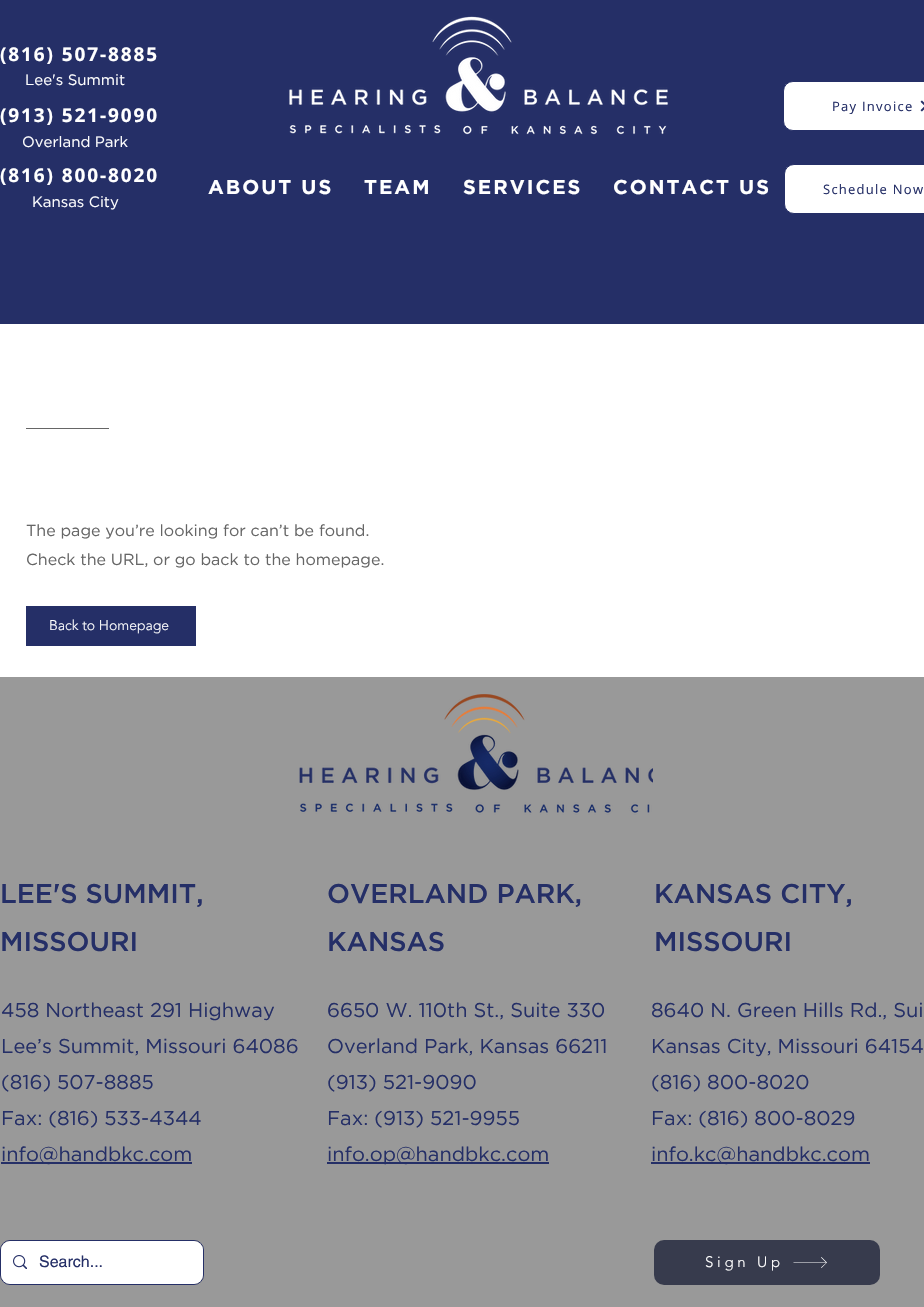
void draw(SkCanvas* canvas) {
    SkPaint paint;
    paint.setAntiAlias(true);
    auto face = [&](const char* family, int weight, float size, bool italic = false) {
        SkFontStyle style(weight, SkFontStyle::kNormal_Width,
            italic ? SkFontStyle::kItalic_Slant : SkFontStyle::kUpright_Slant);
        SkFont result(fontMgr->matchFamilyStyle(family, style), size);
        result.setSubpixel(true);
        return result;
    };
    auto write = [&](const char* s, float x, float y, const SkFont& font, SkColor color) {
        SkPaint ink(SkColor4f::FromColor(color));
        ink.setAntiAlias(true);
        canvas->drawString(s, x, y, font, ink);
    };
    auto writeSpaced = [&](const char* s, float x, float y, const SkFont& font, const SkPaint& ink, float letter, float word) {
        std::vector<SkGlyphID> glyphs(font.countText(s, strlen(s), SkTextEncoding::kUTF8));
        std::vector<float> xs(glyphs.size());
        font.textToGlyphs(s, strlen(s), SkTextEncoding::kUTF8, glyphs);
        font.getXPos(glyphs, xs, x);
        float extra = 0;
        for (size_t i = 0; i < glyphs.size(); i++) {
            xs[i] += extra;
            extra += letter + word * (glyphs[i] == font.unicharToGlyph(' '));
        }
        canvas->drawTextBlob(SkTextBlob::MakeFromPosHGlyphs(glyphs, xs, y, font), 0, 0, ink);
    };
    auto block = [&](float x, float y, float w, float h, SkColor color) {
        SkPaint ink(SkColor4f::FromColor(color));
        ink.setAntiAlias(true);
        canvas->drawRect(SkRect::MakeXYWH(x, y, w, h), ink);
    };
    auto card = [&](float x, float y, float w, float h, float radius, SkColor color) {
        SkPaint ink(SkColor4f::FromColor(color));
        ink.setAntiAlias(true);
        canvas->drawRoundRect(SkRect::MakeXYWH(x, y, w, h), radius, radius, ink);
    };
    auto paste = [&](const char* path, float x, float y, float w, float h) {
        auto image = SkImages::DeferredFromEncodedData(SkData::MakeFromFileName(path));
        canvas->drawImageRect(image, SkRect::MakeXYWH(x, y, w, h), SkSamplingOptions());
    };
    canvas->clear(SK_ColorWHITE);
    block(0, 0, 924, 324, SkColorSetRGB(37, 47, 103));
    auto kFont1 = face("Open Sans", 700, 19);
    paint.setColor(SK_ColorWHITE);
    writeSpaced("(816) 507-8885", 0, 61, kFont1, paint, 1.9f, 0);
    auto kFont2 = face("Gotham", 400, 15);
    write("Lee's Summit", 25, 85, kFont2, SK_ColorWHITE);
    writeSpaced("(913) 521-9090", 0, 122, kFont1, paint, 1.9f, 0);
    write("Overland Park", 22, 147, kFont2, SK_ColorWHITE);
    writeSpaced("(816) 800-8020", 0, 182, kFont1, paint, 1.9f, 0);
    write("Kansas City", 32, 207, kFont2, SK_ColorWHITE);
    paste("pic1.png", 289, 16, 380, 119);
    auto kFont3 = face("Gotham", 700, 20);
    writeSpaced("ABOUT US", 208, 194, kFont3, paint, 2, 0);
    writeSpaced("TEAM", 364, 194, kFont3, paint, 2, 0);
    writeSpaced("SERVICES", 463, 194, kFont3, paint, 2, 0);
    writeSpaced("CONTACT US", 613, 194, kFont3, paint, 2, 0);
    canvas->drawRoundRect(SkRect::MakeXYWH(783.5f, 81.5f, 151, 49), 9.5f, 9.5f, paint);
    paint.setStyle(SkPaint::kStroke_Style);
    paint.setStrokeWidth(1);
    paint.setColor(SkColorSetRGB(37, 47, 103));
    canvas->drawRoundRect(SkRect::MakeXYWH(783.5f, 81.5f, 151, 49), 9.5f, 9.5f, paint);
    auto kFont4 = face("Open Sans", 400, 13);
    paint.setStyle(SkPaint::kFill_Style);
    writeSpaced("Pay Invoice", 832, 111, kFont4, paint, 1.25f, 0);
    paste("pic2.png", 920, 100, 4, 12);
    paint.setColor(SK_ColorWHITE);
    canvas->drawRoundRect(SkRect::MakeXYWH(784.5f, 164.5f, 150, 49), 9.5f, 9.5f, paint);
    paint.setStyle(SkPaint::kStroke_Style);
    paint.setColor(SkColorSetRGB(37, 47, 103));
    canvas->drawRoundRect(SkRect::MakeXYWH(784.5f, 164.5f, 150, 49), 9.5f, 9.5f, paint);
    paint.setStyle(SkPaint::kFill_Style);
    writeSpaced("Schedule Now", 823, 194, kFont4, paint, 1.25f, 0);
    block(26, 428, 83, 1, SkColorSetRGB(102, 102, 102));
    auto kFont5 = face("Gotham", 400, 16);
    write("The page you’re looking for can’t be found.", 26, 536, kFont5, SkColorSetRGB(102, 102, 102));
    write("Check the URL, or go back to the homepage.", 26, 565, kFont5, SkColorSetRGB(102, 102, 102));
    block(26, 606, 170, 40, SkColorSetRGB(37, 47, 103));
    auto kFont6 = face("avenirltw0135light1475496", 300, 14);
    write("Back to Homepage", 49, 630, kFont6, SK_ColorWHITE);
    block(0, 677, 924, 630, SkColorSetRGB(153, 153, 153));
    auto kFont7 = face("Gotham", 500, 27);
    write("LEE'S SUMMIT,", 0, 903, kFont7, SkColorSetRGB(37, 47, 103));
    write("MISSOURI", 0, 951, kFont7, SkColorSetRGB(37, 47, 103));
    auto kFont8 = face("Gotham", 400, 20);
    write("458 Northeast 291 Highway", 1, 1017, kFont8, SkColorSetRGB(37, 47, 103));
    write("Lee’s Summit, Missouri 64086", 1, 1053, kFont8, SkColorSetRGB(37, 47, 103));
    write("(816) 507-8885", 1, 1089, kFont8, SkColorSetRGB(37, 47, 103));
    write("Fax: (816) 533-4344", 1, 1125, kFont8, SkColorSetRGB(37, 47, 103));
    block(1, 1162, 191, 2, SkColorSetRGB(37, 47, 103));
    write("info@handbkc.com", 1, 1161, kFont8, SkColorSetRGB(37, 47, 103));
    paint.setStyle(SkPaint::kStroke_Style);
    canvas->drawRoundRect(SkRect::MakeXYWH(0.5f, 1240.5f, 203, 44), 9.5f, 9.5f, paint);
    card(1, 1241, 202, 43, 9, SK_ColorWHITE);
    paste("pic3.png", 13, 1255, 14, 14);
    auto kFont9 = face("helvetica", 400, 16);
    write("Search...", 39, 1267, kFont9, SkColorSetRGB(37, 47, 103));
    paste("pic4.png", 299, 694, 354, 121);
    write("OVERLAND PARK,", 327, 903, kFont7, SkColorSetRGB(37, 47, 103));
    write("KANSAS", 327, 951, kFont7, SkColorSetRGB(37, 47, 103));
    write("6650 W. 110th St., Suite 330", 327, 1017, kFont8, SkColorSetRGB(37, 47, 103));
    write("Overland Park, Kansas 66211", 327, 1053, kFont8, SkColorSetRGB(37, 47, 103));
    write("(913) 521-9090", 327, 1089, kFont8, SkColorSetRGB(37, 47, 103));
    write("Fax: (913) 521-9955", 327, 1125, kFont8, SkColorSetRGB(37, 47, 103));
    block(327, 1162, 222, 2, SkColorSetRGB(37, 47, 103));
    write("info.op@handbkc.com", 327, 1161, kFont8, SkColorSetRGB(37, 47, 103));
    write("KANSAS CITY,", 654, 903, kFont7, SkColorSetRGB(37, 47, 103));
    write("MISSOURI", 654, 951, kFont7, SkColorSetRGB(37, 47, 103));
    write("8640 N. Green Hills Rd., Sui", 651, 1017, kFont8, SkColorSetRGB(37, 47, 103));
    write("Kansas City, Missouri 64154", 651, 1053, kFont8, SkColorSetRGB(37, 47, 103));
    write("(816) 800-8020", 651, 1089, kFont8, SkColorSetRGB(37, 47, 103));
    write("Fax: (816) 800-8029", 651, 1125, kFont8, SkColorSetRGB(37, 47, 103));
    block(651, 1162, 219, 2, SkColorSetRGB(37, 47, 103));
    write("info.kc@handbkc.com", 651, 1161, kFont8, SkColorSetRGB(37, 47, 103));
    card(654, 1240, 226, 45, 10, SkColorSetRGB(55, 59, 77));
    auto kFont10 = face("avenirltw0135light1475496", 300, 15);
    paint.setStyle(SkPaint::kFill_Style);
    paint.setColor(SK_ColorWHITE);
    writeSpaced("Sign Up", 705, 1267, kFont10, paint, 3.75f, 0);
    canvas->drawPath(SkPathBuilder().moveTo(821.5f, 1257).lineTo(821, 1257.5f).lineTo(826, 1262.5f).lineTo(793.5f, 1262.5f).lineTo(793.5f, 1263).lineTo(826, 1263).lineTo(821, 1267.5f).lineTo(821.5f, 1268).lineTo(827, 1262.5f).close().detach(), paint);
}
